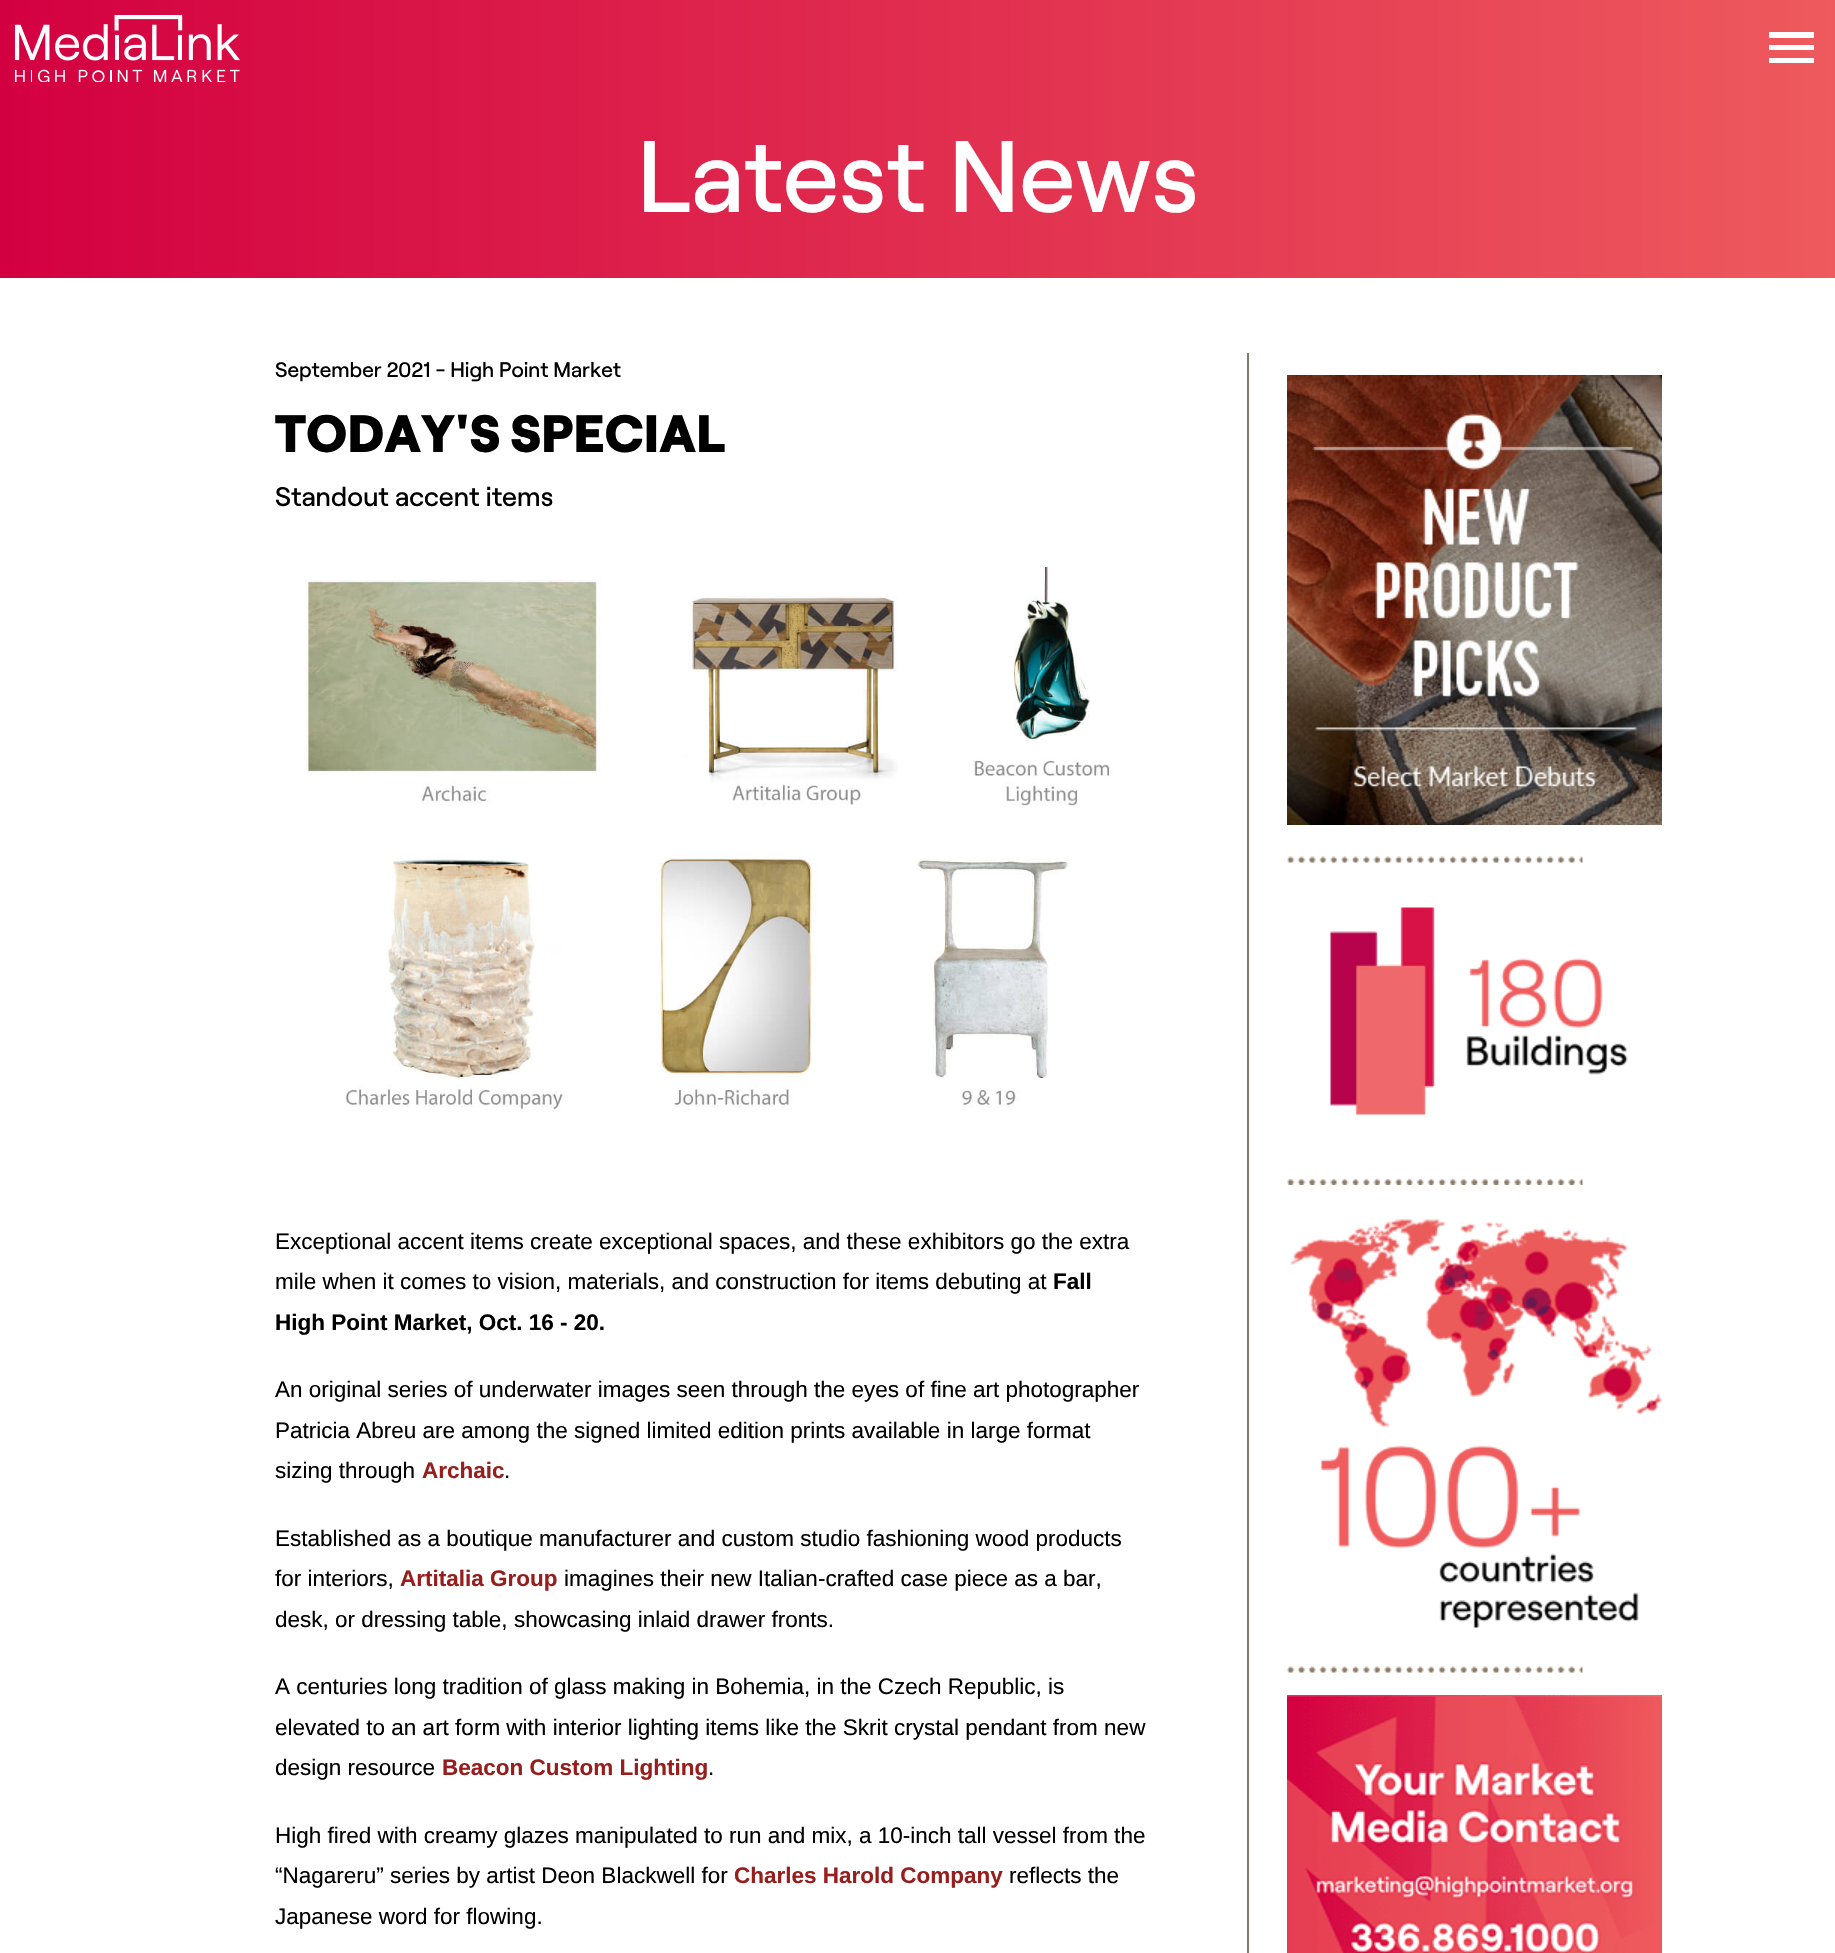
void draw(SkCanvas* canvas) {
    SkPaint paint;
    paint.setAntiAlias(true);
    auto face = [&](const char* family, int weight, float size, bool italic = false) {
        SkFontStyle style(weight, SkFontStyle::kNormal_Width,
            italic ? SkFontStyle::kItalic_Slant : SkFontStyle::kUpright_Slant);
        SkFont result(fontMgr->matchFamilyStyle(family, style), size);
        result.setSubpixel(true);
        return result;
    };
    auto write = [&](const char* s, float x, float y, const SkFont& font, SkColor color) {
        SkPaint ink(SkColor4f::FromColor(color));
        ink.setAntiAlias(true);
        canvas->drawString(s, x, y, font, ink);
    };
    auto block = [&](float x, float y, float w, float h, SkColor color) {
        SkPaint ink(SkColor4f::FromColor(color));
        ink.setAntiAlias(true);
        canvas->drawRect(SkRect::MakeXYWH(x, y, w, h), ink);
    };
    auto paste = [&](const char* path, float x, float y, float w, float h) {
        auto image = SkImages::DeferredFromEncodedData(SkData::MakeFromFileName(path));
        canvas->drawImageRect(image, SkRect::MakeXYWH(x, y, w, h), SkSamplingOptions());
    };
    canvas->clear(SK_ColorWHITE);
    {
        const SkColor colors[] = {SkColorSetRGB(211, 0, 65), SkColorSetRGB(238, 90, 93)};
        const float stops[] = {0, 1};
        const SkPoint ends[] = {{0, 49}, {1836, 49}};
        paint.setShader(SkGradientShader::MakeLinear(ends, colors, stops, 2, SkTileMode::kClamp));
        paint.setAlpha(255);
    }
    canvas->drawRect(SkRect::MakeXYWH(0, 0, 1835, 98), paint);
    paste("pic1.png", 15, 15, 225, 67);
    paint.setShader(nullptr);
    paint.setColor(SK_ColorWHITE);
    canvas->drawPath(SkPathBuilder().moveTo(1769, 32).lineTo(1814, 32).lineTo(1814, 38).lineTo(1769, 38).close().moveTo(1769, 50).lineTo(1769, 45).lineTo(1814, 45).lineTo(1814, 50).close().moveTo(1769, 63).lineTo(1769, 58).lineTo(1814, 58).lineTo(1814, 63).close().detach(), paint);
    {
        const SkColor colors[] = {SkColorSetRGB(211, 0, 65), SkColorSetRGB(238, 90, 93)};
        const float stops[] = {0, 1};
        const SkPoint ends[] = {{0, 187}, {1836, 187}};
        paint.setShader(SkGradientShader::MakeLinear(ends, colors, stops, 2, SkTileMode::kClamp));
        paint.setAlpha(255);
    }
    canvas->drawRect(SkRect::MakeXYWH(0, 98, 1835, 180), paint);
    auto kFont1 = face("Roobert", 500, 101.25f);
    write("Latest News", 637, 212, kFont1, SK_ColorWHITE);
    block(1247, 353, 2, 1600, SkColorSetRGB(138, 121, 103));
    auto kFont2 = face("Roobert", 500, 21);
    write("September 2021 - High Point Market", 275, 377, kFont2, SK_ColorBLACK);
    auto kFont3 = face("Roobert", 900, 52.5f);
    write("TODAY'S SPECIAL", 275, 452, kFont3, SK_ColorBLACK);
    auto kFont4 = face("Roobert", 500, 27);
    write("Standout accent items", 275, 506, kFont4, SK_ColorBLACK);
    paste("pic2.png", 305, 567, 808, 545);
    auto kFont5 = face("Liberation Sans", 400, 22.5f);
    write("Exceptional accent items create exceptional spaces, and these exhibitors go the extra", 275, 1249, kFont5, SK_ColorBLACK);
    write("mile when it comes to vision, materials, and construction for items debuting at", 275, 1289, kFont5, SK_ColorBLACK);
    auto kFont6 = face("Liberation Sans", 700, 22.5f);
    write("Fall", 1053, 1289, kFont6, SK_ColorBLACK);
    write("High Point Market, Oct. 16 - 20.", 275, 1330, kFont6, SK_ColorBLACK);
    write("An original series of underwater images seen through the eyes of fine art photographer", 275, 1397, kFont5, SK_ColorBLACK);
    write("Patricia Abreu are among the signed limited edition prints available in large format", 275, 1438, kFont5, SK_ColorBLACK);
    write("sizing through", 275, 1478, kFont5, SK_ColorBLACK);
    write("Archaic", 422, 1478, kFont6, SkColorSetRGB(151, 30, 29));
    write(".", 504, 1478, kFont5, SK_ColorBLACK);
    write("Established as a boutique manufacturer and custom studio fashioning wood products", 275, 1546, kFont5, SK_ColorBLACK);
    write("for interiors,", 275, 1586, kFont5, SK_ColorBLACK);
    write("Artitalia Group", 400, 1586, kFont6, SkColorSetRGB(151, 30, 29));
    write("imagines their new Italian-crafted case piece as a bar,", 564, 1586, kFont5, SK_ColorBLACK);
    write("desk, or dressing table, showcasing inlaid drawer fronts.", 275, 1627, kFont5, SK_ColorBLACK);
    write("A centuries long tradition of glass making in Bohemia, in the Czech Republic, is", 275, 1694, kFont5, SK_ColorBLACK);
    write("elevated to an art form with interior lighting items like the Skrit crystal pendant from new", 275, 1735, kFont5, SK_ColorBLACK);
    write("design resource", 275, 1775, kFont5, SK_ColorBLACK);
    write("Beacon Custom Lighting", 442, 1775, kFont6, SkColorSetRGB(151, 30, 29));
    write(".", 708, 1775, kFont5, SK_ColorBLACK);
    write("High fired with creamy glazes manipulated to run and mix, a 10-inch tall vessel from the", 275, 1843, kFont5, SK_ColorBLACK);
    write("“Nagareru” series by artist Deon Blackwell for", 275, 1883, kFont5, SK_ColorBLACK);
    write("Charles Harold Company", 734, 1883, kFont6, SkColorSetRGB(151, 30, 29));
    write("reflects the", 1009, 1883, kFont5, SK_ColorBLACK);
    write("Japanese word for flowing.", 275, 1924, kFont5, SK_ColorBLACK);
    paste("pic3.png", 1287, 375, 375, 450);
    paste("pic4.png", 1287, 856, 296, 7);
    paste("pic5.png", 1330, 907, 298, 208);
    paste("pic6.png", 1287, 1179, 296, 6);
    paste("pic7.png", 1290, 1219, 372, 409);
    paste("pic4.png", 1287, 1666, 296, 7);
    paste("pic8.png", 1287, 1695, 375, 258);
}
